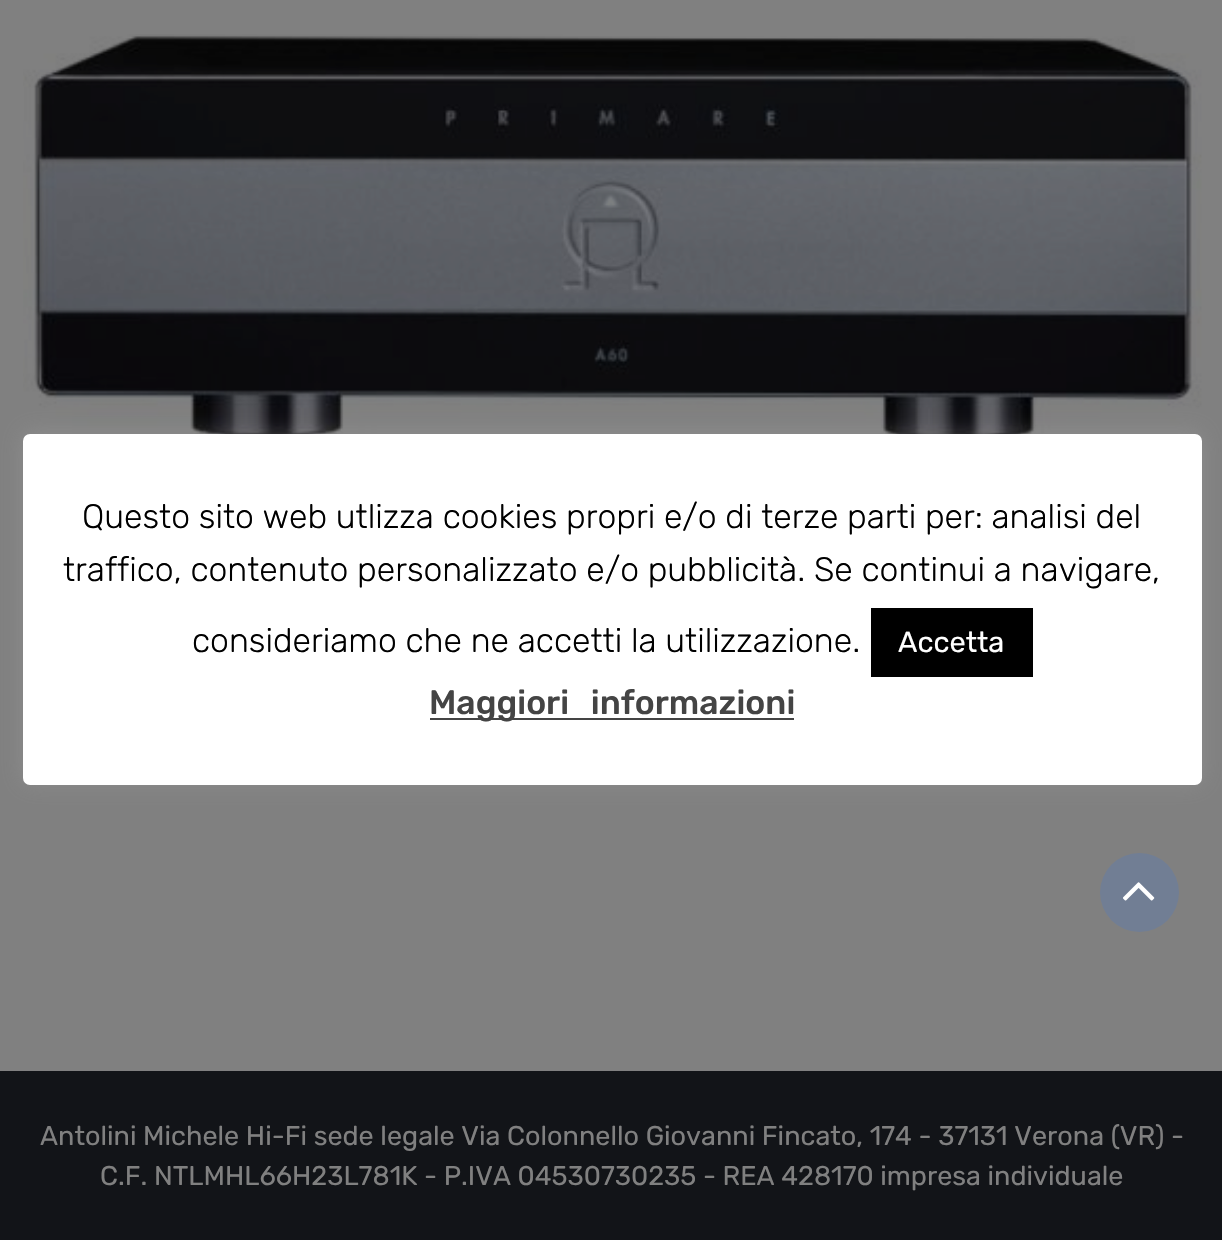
void draw(SkCanvas* canvas) {
    SkPaint paint;
    paint.setAntiAlias(true);
    auto face = [&](const char* family, int weight, float size, bool italic = false) {
        SkFontStyle style(weight, SkFontStyle::kNormal_Width,
            italic ? SkFontStyle::kItalic_Slant : SkFontStyle::kUpright_Slant);
        SkFont result(fontMgr->matchFamilyStyle(family, style), size);
        result.setSubpixel(true);
        return result;
    };
    auto write = [&](const char* s, float x, float y, const SkFont& font, SkColor color) {
        SkPaint ink(SkColor4f::FromColor(color));
        ink.setAntiAlias(true);
        canvas->drawString(s, x, y, font, ink);
    };
    auto writeSpaced = [&](const char* s, float x, float y, const SkFont& font, const SkPaint& ink, float letter, float word) {
        std::vector<SkGlyphID> glyphs(font.countText(s, strlen(s), SkTextEncoding::kUTF8));
        std::vector<float> xs(glyphs.size());
        font.textToGlyphs(s, strlen(s), SkTextEncoding::kUTF8, glyphs);
        font.getXPos(glyphs, xs, x);
        float extra = 0;
        for (size_t i = 0; i < glyphs.size(); i++) {
            xs[i] += extra;
            extra += letter + word * (glyphs[i] == font.unicharToGlyph(' '));
        }
        canvas->drawTextBlob(SkTextBlob::MakeFromPosHGlyphs(glyphs, xs, y, font), 0, 0, ink);
    };
    auto block = [&](float x, float y, float w, float h, SkColor color) {
        SkPaint ink(SkColor4f::FromColor(color));
        ink.setAntiAlias(true);
        canvas->drawRect(SkRect::MakeXYWH(x, y, w, h), ink);
    };
    auto card = [&](float x, float y, float w, float h, float radius, SkColor color) {
        SkPaint ink(SkColor4f::FromColor(color));
        ink.setAntiAlias(true);
        canvas->drawRoundRect(SkRect::MakeXYWH(x, y, w, h), radius, radius, ink);
    };
    auto paste = [&](const char* path, float x, float y, float w, float h) {
        auto image = SkImages::DeferredFromEncodedData(SkData::MakeFromFileName(path));
        canvas->drawImageRect(image, SkRect::MakeXYWH(x, y, w, h), SkSamplingOptions());
    };
    canvas->clear(SkColorSetRGB(128, 128, 128));
    paste("pic2.png", 23, 34, 1179, 407);
    paint.setColor(SkColorSetARGB(77, 172, 171, 171));
    paint.setMaskFilter(SkMaskFilter::MakeBlur(kNormal_SkBlurStyle, 11));
    canvas->drawRoundRect(SkRect::MakeXYWH(23, 432, 1179, 351), 7, 7, paint);
    paint.setMaskFilter(nullptr);
    card(23, 434, 1179, 351, 7, SK_ColorWHITE);
    auto kFont1 = face("Rubik", 300, 33.75f);
    write("Questo sito web utlizza cookies propri e/o di terze parti per: analisi del", 82, 528, kFont1, SK_ColorBLACK);
    write("traffico, contenuto personalizzato e/o pubblicità. Se continui a navigare,", 63, 581, kFont1, SK_ColorBLACK);
    write("consideriamo che ne accetti la utilizzazione.", 192, 652, kFont1, SK_ColorBLACK);
    block(871, 608, 162, 69, SK_ColorBLACK);
    auto kFont2 = face("Rubik", 400, 29);
    write("Accetta", 898, 652, kFont2, SK_ColorWHITE);
    block(430, 718, 364, 2, SkColorSetRGB(68, 68, 68));
    auto kFont3 = face("Rubik", 500, 33.75f);
    paint.setColor(SkColorSetRGB(68, 68, 68));
    writeSpaced("Maggiori informazioni", 429, 714, kFont3, paint, 0, 14);
    paint.setColor(SkColorSetRGB(113, 126, 148));
    canvas->drawCircle(1139.5f, 892.5f, 39.5f, paint);
    paste("pic1.png", 1123, 882, 32, 19);
    block(0, 1071, 1222, 169, SkColorSetRGB(18, 20, 24));
    auto kFont4 = face("Rubik", 400, 27);
    write("Antolini Michele Hi-Fi sede legale Via Colonnello Giovanni Fincato, 174 - 37131 Verona (VR) -", 40, 1145, kFont4, SkColorSetRGB(128, 128, 128));
    write("C.F. NTLMHL66H23L781K - P.IVA 04530730235 - REA 428170 impresa individuale", 100, 1185, kFont4, SkColorSetRGB(128, 128, 128));
}
